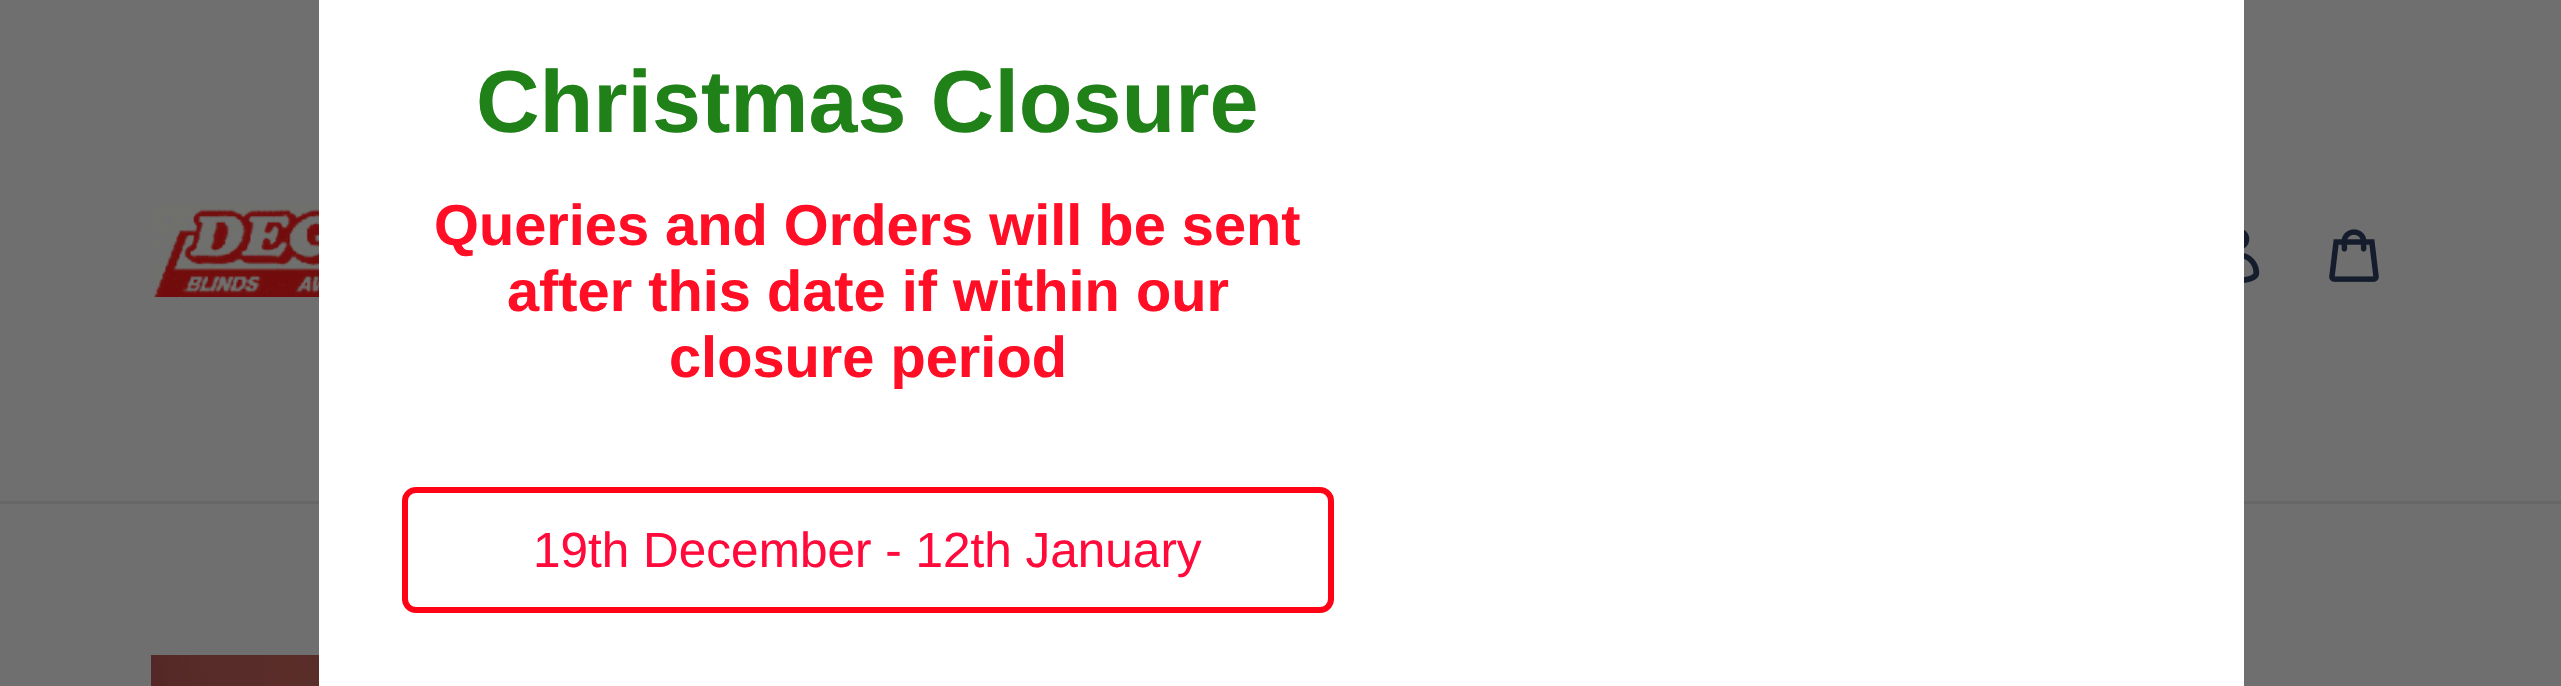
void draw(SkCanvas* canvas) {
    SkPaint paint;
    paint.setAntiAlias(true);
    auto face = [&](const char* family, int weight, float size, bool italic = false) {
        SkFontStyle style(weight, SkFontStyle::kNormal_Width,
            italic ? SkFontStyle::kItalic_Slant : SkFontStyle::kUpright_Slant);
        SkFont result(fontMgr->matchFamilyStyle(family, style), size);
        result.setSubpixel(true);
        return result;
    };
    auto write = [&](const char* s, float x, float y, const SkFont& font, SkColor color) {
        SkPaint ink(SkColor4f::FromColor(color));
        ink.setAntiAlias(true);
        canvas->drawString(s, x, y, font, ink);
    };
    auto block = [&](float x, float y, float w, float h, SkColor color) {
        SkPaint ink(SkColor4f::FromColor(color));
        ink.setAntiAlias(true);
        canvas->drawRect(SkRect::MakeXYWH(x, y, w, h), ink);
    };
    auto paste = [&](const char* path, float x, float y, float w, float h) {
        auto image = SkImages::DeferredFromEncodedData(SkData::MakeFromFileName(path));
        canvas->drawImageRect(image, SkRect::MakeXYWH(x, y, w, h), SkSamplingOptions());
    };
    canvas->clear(SkColorSetRGB(111, 111, 111));
    block(0, 501, 2561, 3, SkColorSetRGB(103, 103, 103));
    block(319, 0, 1925, 686, SK_ColorWHITE);
    auto kFont1 = face("Liberation Sans", 700, 88);
    write("Christmas Closure", 476, 132, kFont1, SkColorSetRGB(32, 129, 25));
    auto kFont2 = face("Liberation Sans", 700, 57.75f);
    write("Queries and Orders will be sent", 434, 245, kFont2, SkColorSetRGB(255, 14, 38));
    write("after this date if within our", 507, 311, kFont2, SkColorSetRGB(255, 14, 38));
    write("closure period", 669, 377, kFont2, SkColorSetRGB(255, 14, 38));
    paint.setStyle(SkPaint::kStroke_Style);
    paint.setStrokeWidth(6);
    paint.setColor(SkColorSetRGB(255, 2, 22));
    canvas->drawRoundRect(SkRect::MakeXYWH(405, 490, 926, 120), 11, 11, paint);
    auto kFont3 = face("Liberation Sans", 400, 49.5f);
    write("19th December - 12th January", 533, 567, kFont3, SkColorSetRGB(255, 10, 59));
    paste("pic1.png", 153, 204, 166, 93);
    paste("pic2.png", 2244, 229, 16, 54);
    paste("pic3.png", 2329, 229, 50, 53);
    paste("pic4.png", 151, 655, 168, 31);
}
